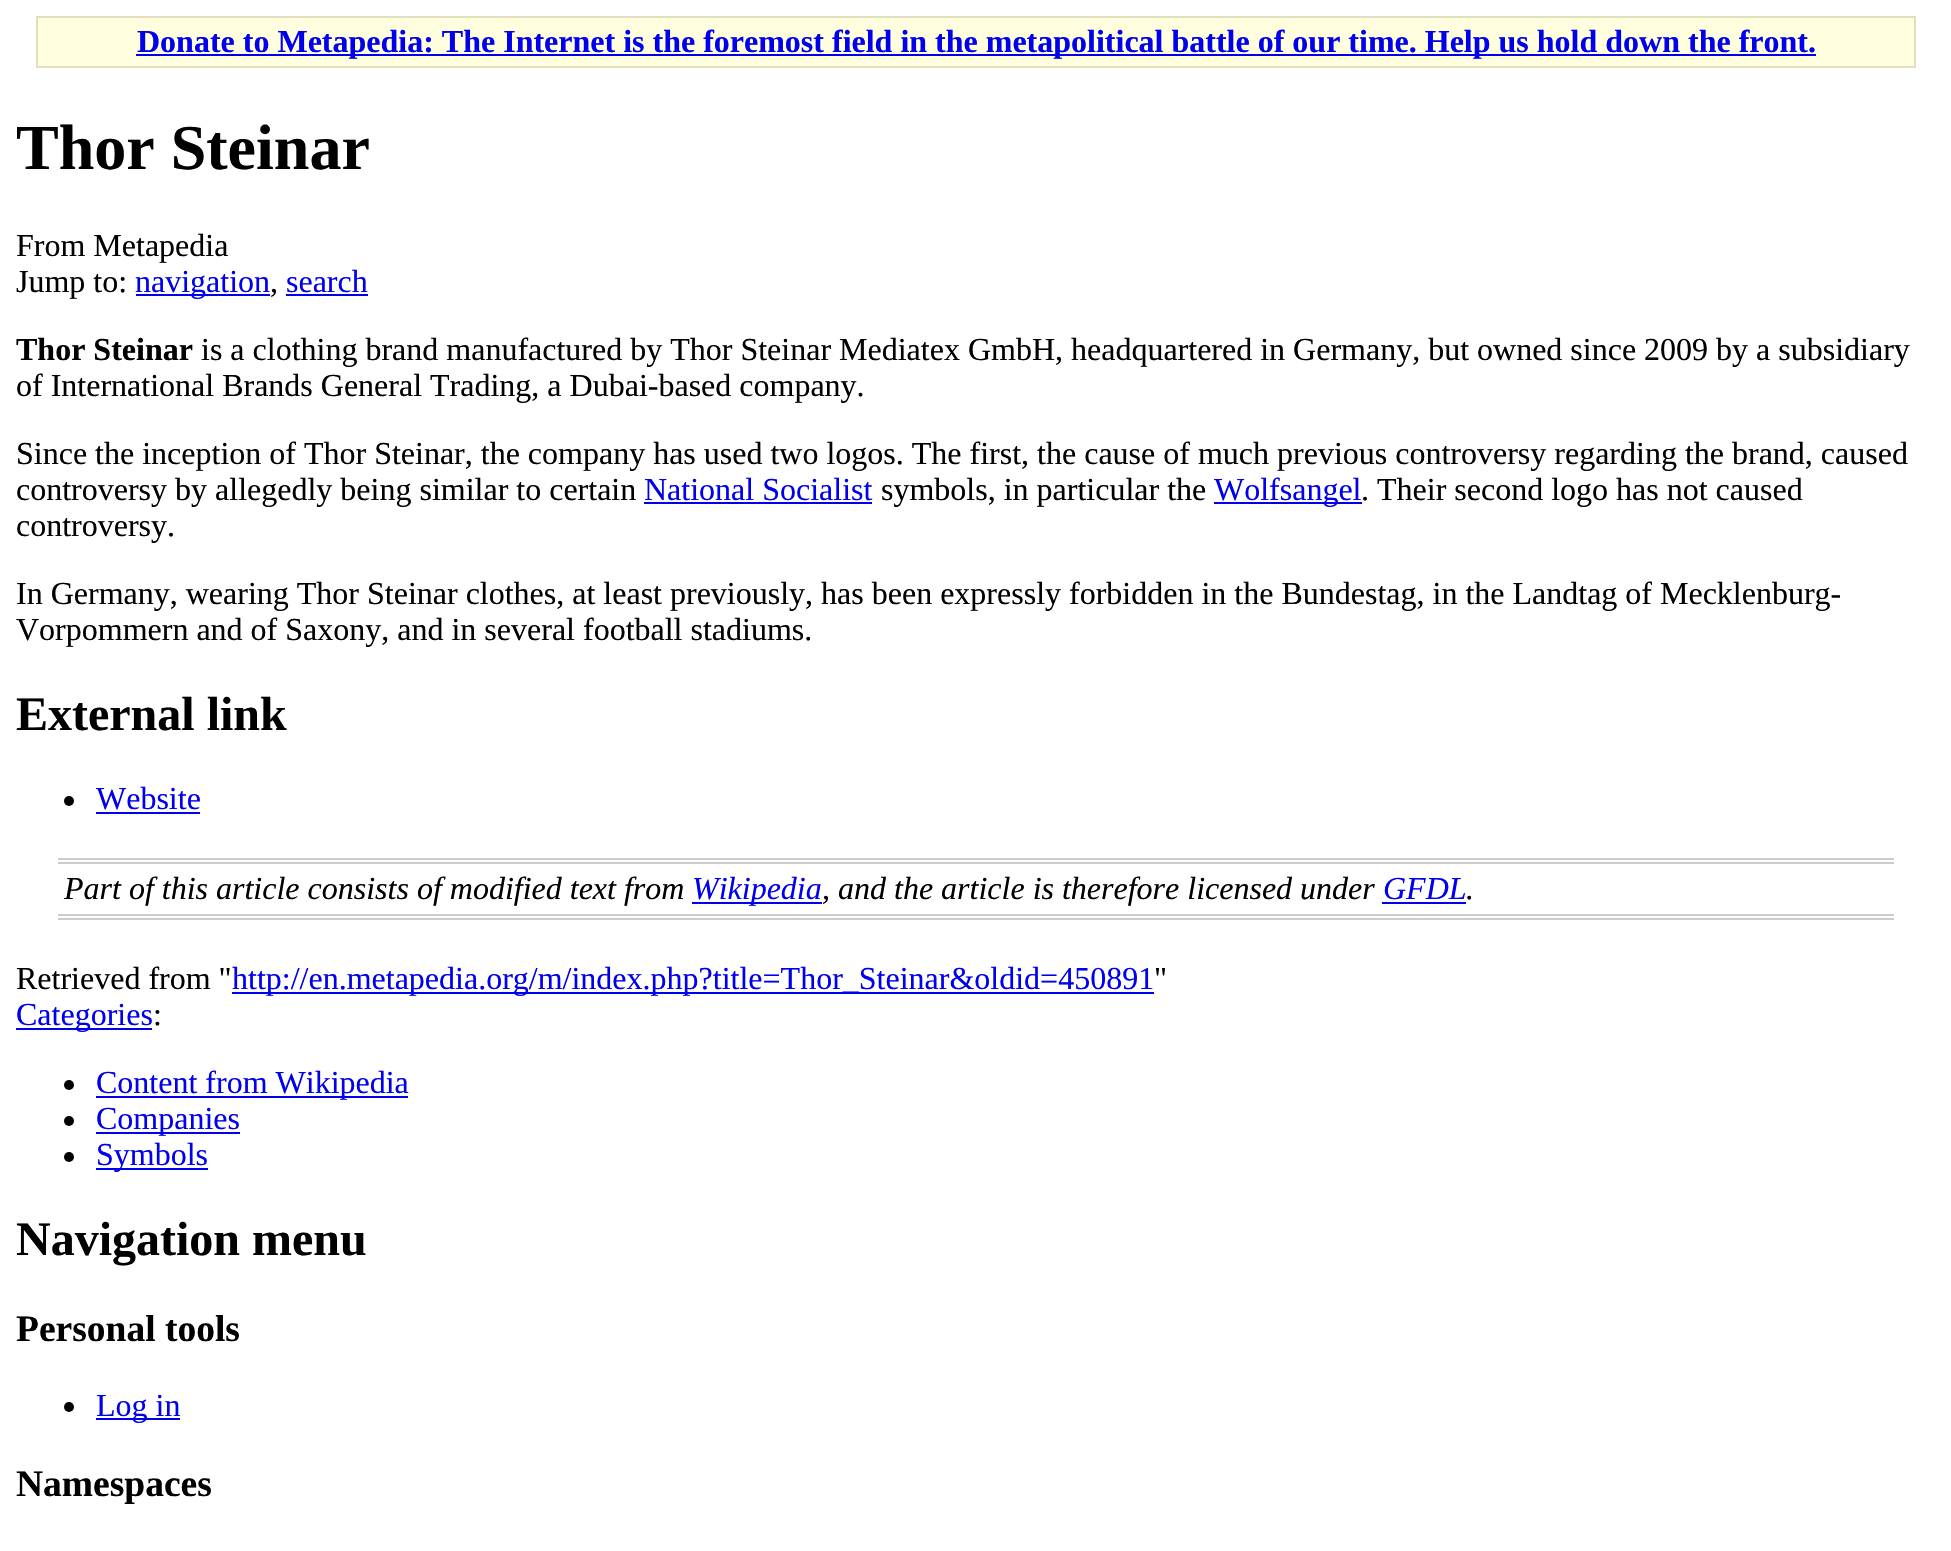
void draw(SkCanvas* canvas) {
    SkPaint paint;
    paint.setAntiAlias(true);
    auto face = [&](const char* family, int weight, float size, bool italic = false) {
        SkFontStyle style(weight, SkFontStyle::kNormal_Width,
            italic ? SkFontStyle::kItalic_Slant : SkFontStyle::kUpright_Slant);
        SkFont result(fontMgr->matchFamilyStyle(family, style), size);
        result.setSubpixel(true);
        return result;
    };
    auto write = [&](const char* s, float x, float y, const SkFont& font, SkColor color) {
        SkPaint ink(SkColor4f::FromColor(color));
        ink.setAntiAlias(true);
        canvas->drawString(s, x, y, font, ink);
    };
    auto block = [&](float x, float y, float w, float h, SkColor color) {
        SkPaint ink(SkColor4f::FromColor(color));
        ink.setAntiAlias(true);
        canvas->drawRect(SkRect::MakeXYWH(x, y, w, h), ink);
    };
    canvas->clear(SK_ColorWHITE);
    paint.setColor(SkColorSetRGB(255, 255, 224));
    canvas->drawRect(SkRect::MakeXYWH(37, 17, 1878, 50), paint);
    paint.setStyle(SkPaint::kStroke_Style);
    paint.setStrokeWidth(2);
    paint.setColor(SkColorSetRGB(224, 224, 192));
    canvas->drawRect(SkRect::MakeXYWH(37, 17, 1878, 50), paint);
    block(136, 54, 1680, 2, SkColorSetRGB(0, 0, 238));
    auto kFont1 = face("Liberation Serif", 700, 32);
    write("Donate to Metapedia: The Internet is the foremost field in the metapolitical battle of our time. Help us hold down the front.", 137, 52, kFont1, SkColorSetRGB(0, 0, 238));
    auto kFont2 = face("Liberation Serif", 700, 64);
    write("Thor Steinar", 16, 169, kFont2, SK_ColorBLACK);
    auto kFont3 = face("Liberation Serif", 400, 32);
    write("From Metapedia", 16, 256, kFont3, SK_ColorBLACK);
    write("Jump to:", 16, 292, kFont3, SK_ColorBLACK);
    block(136, 294, 134, 2, SkColorSetRGB(0, 0, 238));
    write("navigation", 135, 292, kFont3, SkColorSetRGB(0, 0, 238));
    write(",", 270, 292, kFont3, SK_ColorBLACK);
    write("search", 286, 292, kFont3, SkColorSetRGB(0, 0, 238));
    block(286, 294, 82, 2, SkColorSetRGB(0, 0, 238));
    write("Thor Steinar", 16, 360, kFont1, SK_ColorBLACK);
    write("is a clothing brand manufactured by Thor Steinar Mediatex GmbH, headquartered in Germany, but owned since 2009 by a subsidiary", 201, 360, kFont3, SK_ColorBLACK);
    write("of International Brands General Trading, a Dubai-based company.", 16, 396, kFont3, SK_ColorBLACK);
    write("Since the inception of Thor Steinar, the company has used two logos. The first, the cause of much previous controversy regarding the brand, caused", 16, 464, kFont3, SK_ColorBLACK);
    write("controversy by allegedly being similar to certain", 16, 500, kFont3, SK_ColorBLACK);
    write("National Socialist", 644, 500, kFont3, SkColorSetRGB(0, 0, 238));
    block(644, 502, 228, 2, SkColorSetRGB(0, 0, 238));
    write("symbols, in particular the", 881, 500, kFont3, SK_ColorBLACK);
    block(1214, 502, 148, 2, SkColorSetRGB(0, 0, 238));
    write("Wolfsangel", 1214, 500, kFont3, SkColorSetRGB(0, 0, 238));
    write(". Their second logo has not caused", 1361, 500, kFont3, SK_ColorBLACK);
    write("controversy.", 16, 536, kFont3, SK_ColorBLACK);
    write("In Germany, wearing Thor Steinar clothes, at least previously, has been expressly forbidden in the Bundestag, in the Landtag of Mecklenburg-", 16, 604, kFont3, SK_ColorBLACK);
    write("Vorpommern and of Saxony, and in several football stadiums.", 16, 640, kFont3, SK_ColorBLACK);
    auto kFont4 = face("Liberation Serif", 700, 48);
    write("External link", 16, 730, kFont4, SK_ColorBLACK);
    paint.setStyle(SkPaint::kFill_Style);
    paint.setColor(SK_ColorBLACK);
    canvas->drawCircle(69, 801, 5, paint);
    write("Website", 96, 809, kFont3, SkColorSetRGB(0, 0, 238));
    block(96, 812, 104, 2, SkColorSetRGB(0, 0, 238));
    block(58, 858, 1836, 2, SkColorSetRGB(204, 204, 204));
    block(58, 862, 1836, 2, SkColorSetRGB(204, 204, 204));
    block(58, 914, 1836, 2, SkColorSetRGB(204, 204, 204));
    block(58, 918, 1836, 2, SkColorSetRGB(204, 204, 204));
    auto kFont5 = face("Liberation Serif", 400, 32, true);
    write("Part of this article consists of modified text from", 64, 899, kFont5, SK_ColorBLACK);
    block(692, 902, 130, 2, SkColorSetRGB(0, 0, 238));
    write("Wikipedia", 692, 899, kFont5, SkColorSetRGB(0, 0, 238));
    write(", and the article is therefore licensed under", 822, 899, kFont5, SK_ColorBLACK);
    write("GFDL", 1383, 899, kFont5, SkColorSetRGB(0, 0, 238));
    write(".", 1466, 899, kFont5, SK_ColorBLACK);
    block(1382, 902, 84, 2, SkColorSetRGB(0, 0, 238));
    write("Retrieved from \"", 16, 989, kFont3, SK_ColorBLACK);
    block(232, 992, 922, 2, SkColorSetRGB(0, 0, 238));
    write("http://en.metapedia.org/m/index.php?title=Thor_Steinar&oldid=450891", 232, 989, kFont3, SkColorSetRGB(0, 0, 238));
    write("\"", 1154, 989, kFont3, SK_ColorBLACK);
    block(16, 1028, 136, 2, SkColorSetRGB(0, 0, 238));
    write("Categories", 16, 1025, kFont3, SkColorSetRGB(0, 0, 238));
    write(":", 153, 1025, kFont3, SK_ColorBLACK);
    canvas->drawCircle(69, 1085, 5, paint);
    block(96, 1096, 312, 2, SkColorSetRGB(0, 0, 238));
    write("Content from Wikipedia", 96, 1093, kFont3, SkColorSetRGB(0, 0, 238));
    canvas->drawCircle(69, 1121, 5, paint);
    block(96, 1132, 144, 2, SkColorSetRGB(0, 0, 238));
    write("Companies", 96, 1129, kFont3, SkColorSetRGB(0, 0, 238));
    canvas->drawCircle(69, 1157, 5, paint);
    block(96, 1168, 112, 2, SkColorSetRGB(0, 0, 238));
    write("Symbols", 96, 1165, kFont3, SkColorSetRGB(0, 0, 238));
    write("Navigation menu", 16, 1255, kFont4, SK_ColorBLACK);
    auto kFont6 = face("Liberation Serif", 700, 37.5f);
    write("Personal tools", 16, 1341, kFont6, SK_ColorBLACK);
    canvas->drawCircle(69, 1407, 5, paint);
    block(96, 1418, 84, 2, SkColorSetRGB(0, 0, 238));
    write("Log in", 96, 1416, kFont3, SkColorSetRGB(0, 0, 238));
    write("Namespaces", 16, 1496, kFont6, SK_ColorBLACK);
}
